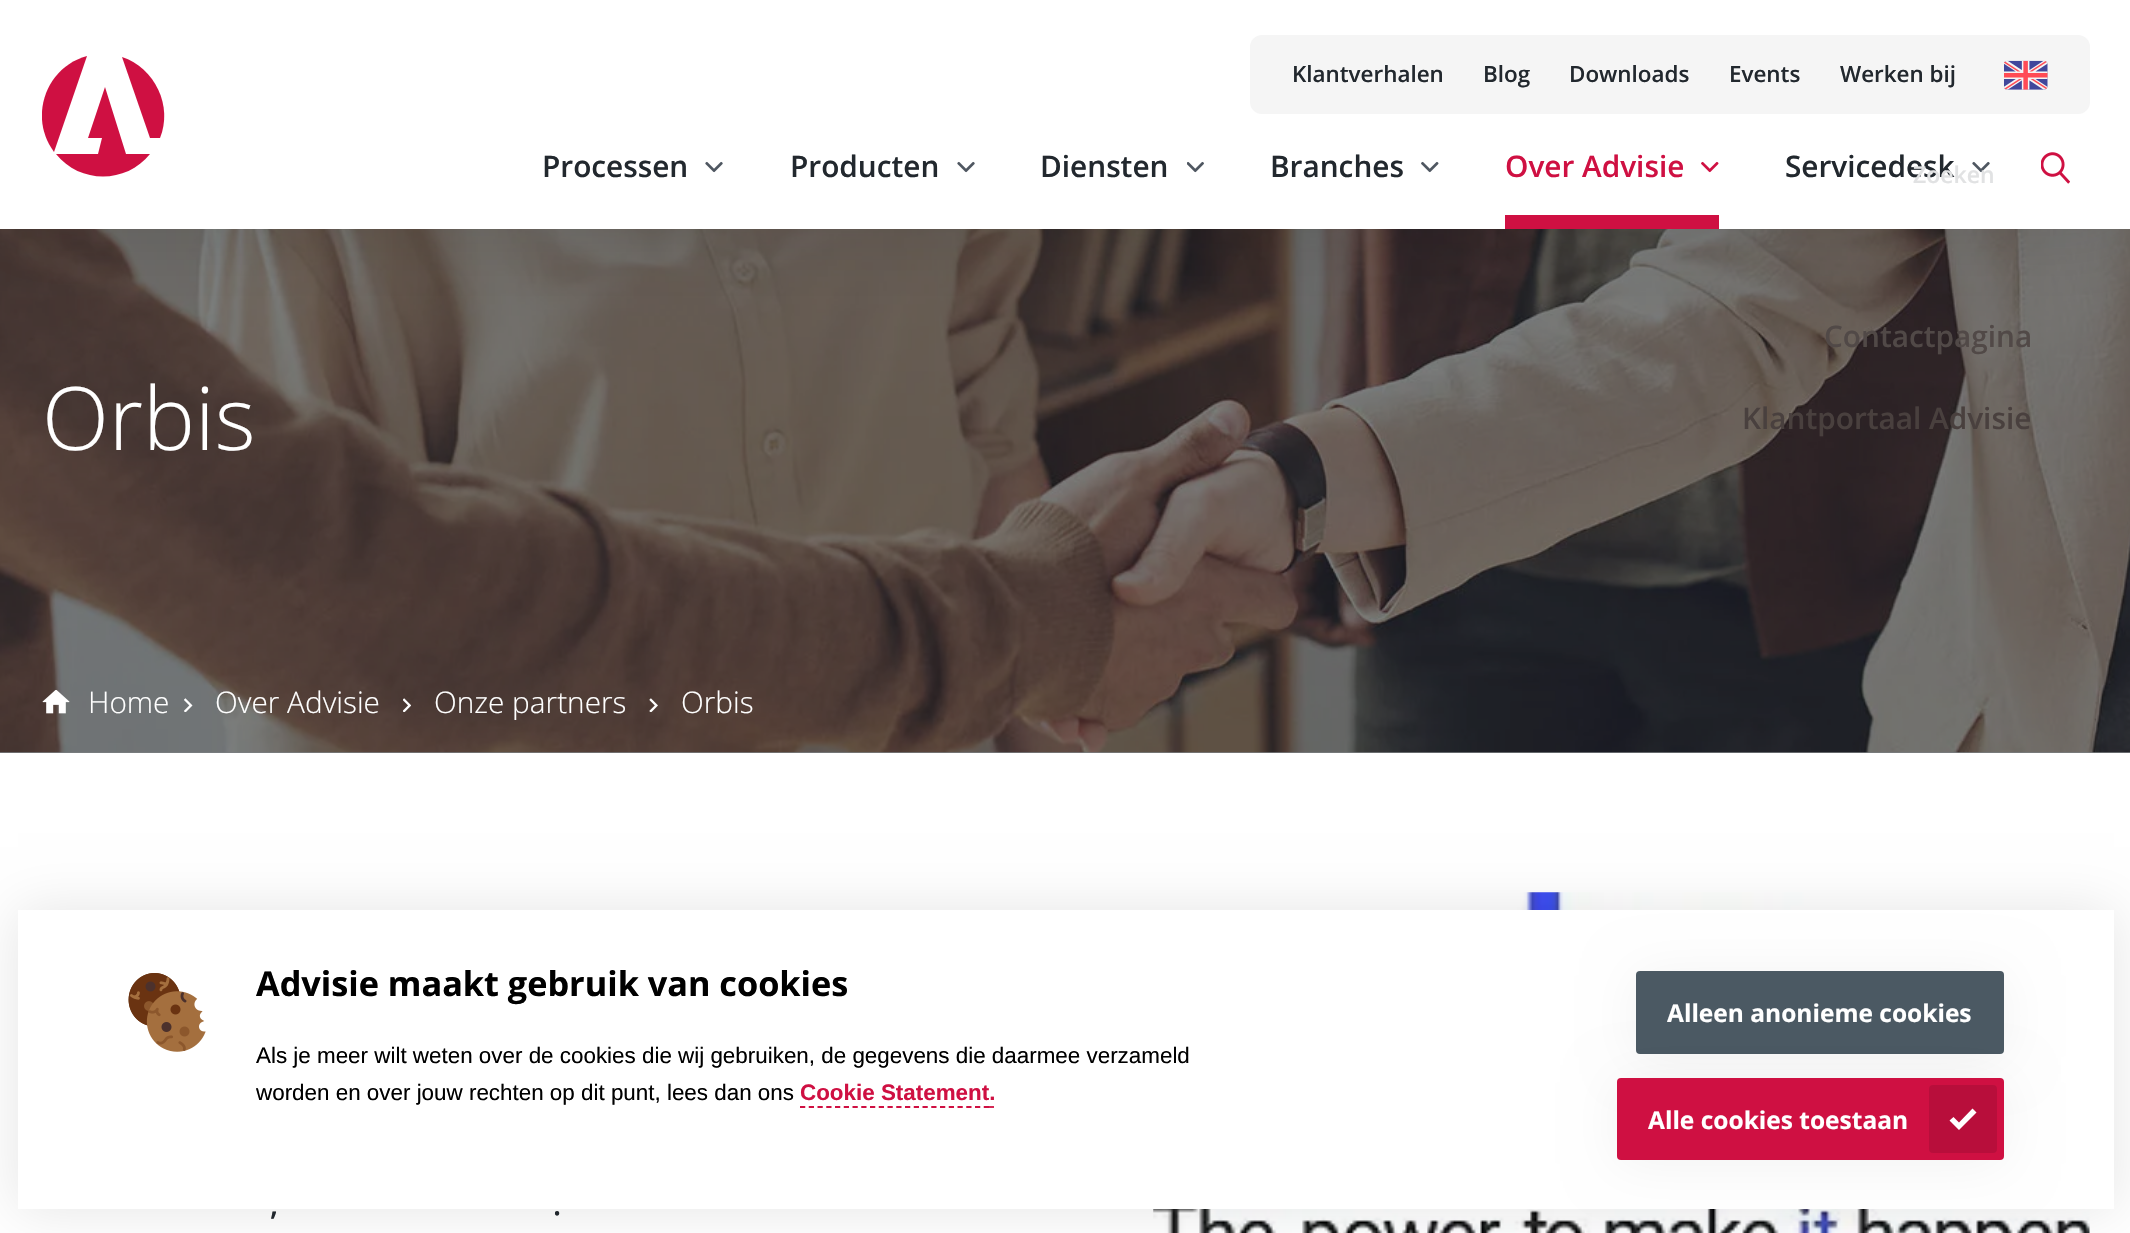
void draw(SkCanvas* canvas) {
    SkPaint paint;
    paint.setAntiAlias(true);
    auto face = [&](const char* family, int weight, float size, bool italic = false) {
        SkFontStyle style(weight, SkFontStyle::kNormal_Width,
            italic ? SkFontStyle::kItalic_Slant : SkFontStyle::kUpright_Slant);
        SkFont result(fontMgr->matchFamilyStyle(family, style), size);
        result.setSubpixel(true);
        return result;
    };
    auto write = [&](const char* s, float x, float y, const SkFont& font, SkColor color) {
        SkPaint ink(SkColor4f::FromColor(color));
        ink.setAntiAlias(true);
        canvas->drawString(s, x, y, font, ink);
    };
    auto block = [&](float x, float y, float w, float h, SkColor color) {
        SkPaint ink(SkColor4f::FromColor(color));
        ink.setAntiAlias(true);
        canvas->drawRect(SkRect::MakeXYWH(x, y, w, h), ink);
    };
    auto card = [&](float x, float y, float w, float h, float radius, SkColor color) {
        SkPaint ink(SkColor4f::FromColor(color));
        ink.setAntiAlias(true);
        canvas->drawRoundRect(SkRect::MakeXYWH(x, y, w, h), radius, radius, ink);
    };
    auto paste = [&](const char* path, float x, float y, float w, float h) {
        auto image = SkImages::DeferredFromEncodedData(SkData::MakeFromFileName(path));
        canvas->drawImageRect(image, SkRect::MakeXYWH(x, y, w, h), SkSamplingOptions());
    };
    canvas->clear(SK_ColorWHITE);
    block(0, 752, 2130, 1, SkColorSetRGB(122, 126, 130));
    paste("pic7.png", 0, 229, 2130, 524);
    paint.setColor(SkColorSetARGB(26, 0, 0, 0));
    paint.setMaskFilter(SkMaskFilter::MakeBlur(kNormal_SkBlurStyle, 35));
    canvas->drawRect(SkRect::MakeXYWH(0, 4, 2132, 229), paint);
    paint.setMaskFilter(nullptr);
    block(0, 0, 2130, 229, SK_ColorWHITE);
    canvas->save();
    canvas->clipRect(SkRect::MakeXYWH(42, 54, 123, 125));
    paint.setColor(SkColorSetRGB(207, 16, 66));
    canvas->drawPath(SkPathBuilder().moveTo(87, 56).cubicTo(46, 67, 28, 117, 54, 152).close().detach(), paint);
    canvas->restore();
    canvas->drawPath(SkPathBuilder().moveTo(150, 138).lineTo(160, 138).cubicTo(173, 106, 155, 68, 122, 57).close().detach(), paint);
    canvas->drawPath(SkPathBuilder().moveTo(131, 154).lineTo(126, 154).lineTo(105, 87).lineTo(88, 138).lineTo(102, 138).lineTo(98, 154).lineTo(56, 154).cubicTo(80, 184, 126, 184, 150, 154).close().detach(), paint);
    card(1250, 35, 840, 79, 12, SkColorSetRGB(245, 245, 245));
    auto kFont1 = face("Open Sans", 600, 22.4f);
    write("Klantverhalen", 1292, 82, kFont1, SkColorSetRGB(34, 40, 46));
    write("Blog", 1483, 82, kFont1, SkColorSetRGB(34, 40, 46));
    write("Downloads", 1569, 82, kFont1, SkColorSetRGB(34, 40, 46));
    write("Events", 1729, 82, kFont1, SkColorSetRGB(34, 40, 46));
    write("Werken bij", 1840, 82, kFont1, SkColorSetRGB(34, 40, 46));
    paste("pic1.png", 2004, 60, 44, 30);
    auto kFont2 = face("Open Sans", 600, 29.75f);
    write("Processen", 542, 177, kFont2, SkColorSetRGB(34, 40, 46));
    paste("pic2.png", 705, 161, 18, 12);
    write("Producten", 790, 177, kFont2, SkColorSetRGB(34, 40, 46));
    paste("pic2.png", 957, 161, 18, 12);
    write("Diensten", 1040, 177, kFont2, SkColorSetRGB(34, 40, 46));
    paste("pic3.png", 1187, 161, 17, 12);
    write("Branches", 1270, 177, kFont2, SkColorSetRGB(34, 40, 46));
    paste("pic4.png", 1421, 161, 18, 12);
    block(1505, 215, 214, 14, SkColorSetRGB(207, 16, 66));
    write("Over Advisie", 1505, 177, kFont2, SkColorSetRGB(207, 16, 66));
    paste("pic5.png", 1701, 161, 18, 12);
    write("Servicedesk", 1785, 177, kFont2, SkColorSetRGB(34, 40, 46));
    paste("pic2.png", 1972, 161, 18, 12);
    auto kFont3 = face("Open Sans", 600, 23);
    write("Zoeken", 1913, 183, kFont3, SkColorSetRGB(225, 226, 227));
    paste("pic6.png", 2041, 152, 29, 32);
    write("Contactpagina", 1824, 347, kFont2, SkColorSetRGB(81, 73, 71));
    write("Klantportaal Advisie", 1742, 429, kFont2, SkColorSetRGB(73, 64, 62));
    auto kFont4 = face("Open Sans", 300, 87.5f);
    write("Orbis", 42, 450, kFont4, SK_ColorWHITE);
    paste("pic8.png", 42, 690, 28, 24);
    auto kFont5 = face("Open Sans", 300, 29.75f);
    write("Home", 88, 713, kFont5, SK_ColorWHITE);
    paste("pic9.png", 184, 698, 9, 14);
    write("Over Advisie", 215, 713, kFont5, SK_ColorWHITE);
    paste("pic10.png", 403, 698, 8, 14);
    write("Onze partners", 434, 713, kFont5, SK_ColorWHITE);
    paste("pic11.png", 649, 698, 9, 14);
    write("Orbis", 681, 713, kFont5, SK_ColorWHITE);
    write(",", 270, 1215, kFont2, SkColorSetRGB(34, 40, 46));
    write(".", 553, 1215, kFont2, SkColorSetRGB(34, 40, 46));
    paste("pic12.png", 1153, 892, 937, 341);
    paint.setColor(SkColorSetARGB(26, 0, 0, 0));
    paint.setMaskFilter(SkMaskFilter::MakeBlur(kNormal_SkBlurStyle, 26));
    canvas->drawRect(SkRect::MakeXYWH(18, 910, 2096, 299), paint);
    paint.setMaskFilter(nullptr);
    block(18, 910, 2096, 299, SK_ColorWHITE);
    paste("pic13.png", 128, 973, 78, 79);
    auto kFont6 = face("Open Sans", 700, 34.25f);
    write("Advisie maakt gebruik van cookies", 256, 996, kFont6, SK_ColorBLACK);
    auto kFont7 = face("Liberation Sans", 400, 22.4f);
    write("Als je meer wilt weten over de cookies die wij gebruiken, de gegevens die daarmee verzameld", 256, 1063, kFont7, SK_ColorBLACK);
    write("worden en over jouw rechten op dit punt, lees dan ons", 256, 1100, kFont7, SK_ColorBLACK);
    auto kFont8 = face("Liberation Sans", 700, 22.4f);
    write("Cookie Statement.", 800, 1100, kFont8, SkColorSetRGB(207, 16, 66));
    paint.setStyle(SkPaint::kStroke_Style);
    paint.setStrokeWidth(1.8f);
    paint.setColor(SkColorSetRGB(207, 16, 66));
    paint.setPathEffect(SkDashPathEffect::Make({{5.25f, 3.5f}}, 0));
    canvas->drawPath(SkPathBuilder().moveTo(800, 1107).lineTo(989, 1107).detach(), paint);
    paint.setPathEffect(nullptr);
    canvas->drawPath(SkPathBuilder().moveTo(989, 1107).lineTo(994, 1107).detach(), paint);
    paint.setStyle(SkPaint::kFill_Style);
    paint.setColor(SkColorSetARGB(13, 0, 0, 0));
    paint.setMaskFilter(SkMaskFilter::MakeBlur(kNormal_SkBlurStyle, 26));
    canvas->drawRoundRect(SkRect::MakeXYWH(1636, 975, 368, 82), 4, 4, paint);
    paint.setMaskFilter(nullptr);
    card(1636, 971, 368, 83, 4, SkColorSetRGB(75, 89, 99));
    auto kFont9 = face("Open Sans", 700, 24.5f);
    write("Alleen anonieme cookies", 1667, 1022, kFont9, SK_ColorWHITE);
    paint.setMaskFilter(SkMaskFilter::MakeBlur(kNormal_SkBlurStyle, 26));
    canvas->drawRoundRect(SkRect::MakeXYWH(1617, 1082, 387, 82), 4, 4, paint);
    paint.setMaskFilter(nullptr);
    card(1617, 1078, 387, 82, 4, SkColorSetRGB(207, 16, 66));
    write("Alle cookies toestaan", 1648, 1129, kFont9, SK_ColorWHITE);
    card(1929, 1085, 68, 68, 4, SkColorSetRGB(184, 14, 59));
    paint.setColor(SK_ColorWHITE);
    canvas->drawPath(SkPathBuilder().moveTo(1972.5f, 1108.5f).lineTo(1959, 1122.5f).lineTo(1953.5f, 1117).lineTo(1949.5f, 1120.5f).lineTo(1959, 1130).lineTo(1976.5f, 1112.5f).close().detach(), paint);
}
